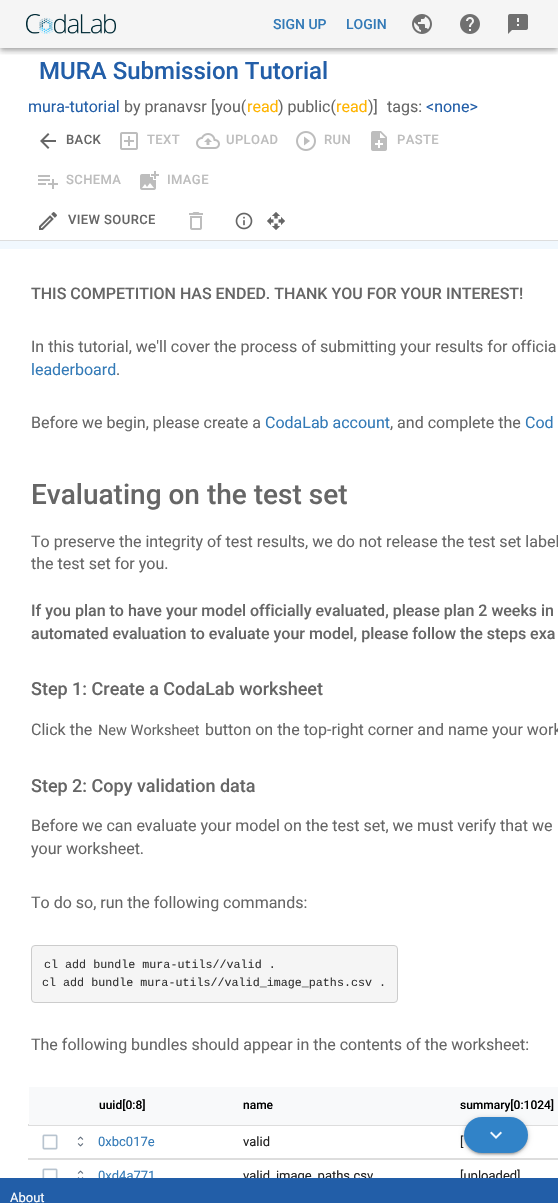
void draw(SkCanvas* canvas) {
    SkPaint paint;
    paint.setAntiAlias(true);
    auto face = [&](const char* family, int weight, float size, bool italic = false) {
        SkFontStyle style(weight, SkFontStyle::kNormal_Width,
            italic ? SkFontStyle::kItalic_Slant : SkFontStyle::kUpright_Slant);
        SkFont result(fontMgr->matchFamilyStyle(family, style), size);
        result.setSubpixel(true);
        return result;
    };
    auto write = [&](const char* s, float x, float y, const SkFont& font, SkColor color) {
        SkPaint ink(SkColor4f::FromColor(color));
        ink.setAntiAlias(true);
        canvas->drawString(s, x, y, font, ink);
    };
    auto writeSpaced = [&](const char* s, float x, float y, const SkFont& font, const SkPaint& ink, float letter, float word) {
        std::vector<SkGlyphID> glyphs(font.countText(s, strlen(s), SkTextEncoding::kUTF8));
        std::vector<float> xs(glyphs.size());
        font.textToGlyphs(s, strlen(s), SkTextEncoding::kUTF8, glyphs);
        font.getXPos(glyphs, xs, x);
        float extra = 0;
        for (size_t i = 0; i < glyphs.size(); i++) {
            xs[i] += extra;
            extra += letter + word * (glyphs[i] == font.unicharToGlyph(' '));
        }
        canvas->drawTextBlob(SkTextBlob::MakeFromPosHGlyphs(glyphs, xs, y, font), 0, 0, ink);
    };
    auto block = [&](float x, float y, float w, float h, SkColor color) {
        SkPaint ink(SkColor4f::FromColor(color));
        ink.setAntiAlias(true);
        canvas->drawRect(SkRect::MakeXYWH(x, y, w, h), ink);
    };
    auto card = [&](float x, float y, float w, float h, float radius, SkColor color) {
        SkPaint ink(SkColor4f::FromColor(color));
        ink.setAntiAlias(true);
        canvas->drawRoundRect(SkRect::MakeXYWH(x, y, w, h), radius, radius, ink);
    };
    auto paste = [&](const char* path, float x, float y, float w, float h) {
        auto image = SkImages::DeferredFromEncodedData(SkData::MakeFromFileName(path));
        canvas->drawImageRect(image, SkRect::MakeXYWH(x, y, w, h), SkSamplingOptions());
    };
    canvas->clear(SK_ColorWHITE);
    block(0, 0, 558, 48, SkColorSetRGB(245, 245, 245));
    canvas->save();
    canvas->clipRect(SkRect::MakeXYWH(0, 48, 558, 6));
    paint.setColor(SkColorSetARGB(31, 0, 0, 0));
    paint.setMaskFilter(SkMaskFilter::MakeBlur(kNormal_SkBlurStyle, 5));
    canvas->drawRect(SkRect::MakeXYWH(0, 1, 558, 48), paint);
    paint.setMaskFilter(nullptr);
    canvas->restore();
    canvas->save();
    canvas->clipRect(SkRect::MakeXYWH(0, 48, 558, 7));
    paint.setColor(SkColorSetARGB(36, 0, 0, 0));
    paint.setMaskFilter(SkMaskFilter::MakeBlur(kNormal_SkBlurStyle, 2.5f));
    canvas->drawRect(SkRect::MakeXYWH(0, 4, 558, 48), paint);
    paint.setMaskFilter(nullptr);
    canvas->restore();
    canvas->save();
    canvas->clipRect(SkRect::MakeXYWH(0, 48, 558, 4));
    paint.setColor(SkColorSetARGB(51, 0, 0, 0));
    paint.setMaskFilter(SkMaskFilter::MakeBlur(kNormal_SkBlurStyle, 2));
    canvas->drawRect(SkRect::MakeXYWH(1, 3, 556, 46), paint);
    paint.setMaskFilter(nullptr);
    canvas->restore();
    paste("pic1.png", 26, 14, 90, 20);
    auto kFont1 = face("Roboto", 500, 14);
    write("SIGN UP", 273, 29, kFont1, SkColorSetRGB(51, 122, 183));
    write("LOGIN", 346, 29, kFont1, SkColorSetRGB(51, 122, 183));
    paste("pic2.png", 412, 14, 20, 20);
    paste("pic3.png", 460, 14, 20, 20);
    paste("pic4.png", 508, 14, 20, 20);
    block(0, 240, 558, 1, SkColorSetRGB(221, 221, 221));
    auto kFont2 = face("Roboto", 500, 24);
    write("MURA Submission Tutorial", 39, 79, kFont2, SkColorSetRGB(34, 94, 168));
    auto kFont3 = face("Roboto", 400, 16);
    write("mura-tutorial", 28, 112, kFont3, SkColorSetRGB(34, 94, 168));
    write("by pranavsr", 124, 112, kFont3, SkColorSetRGB(102, 102, 102));
    write("[you(", 211, 112, kFont3, SkColorSetRGB(102, 102, 102));
    write("read", 247, 112, kFont3, SkColorSetRGB(255, 180, 0));
    write(") public(", 278, 112, kFont3, SkColorSetRGB(102, 102, 102));
    write("read", 336, 112, kFont3, SkColorSetRGB(255, 180, 0));
    write(")]", 368, 112, kFont3, SkColorSetRGB(102, 102, 102));
    write("tags:", 387, 112, kFont3, SkColorSetRGB(102, 102, 102));
    write("<none>", 426, 112, kFont3, SkColorSetRGB(34, 94, 168));
    paste("pic5.png", 40, 133, 16, 16);
    auto kFont4 = face("Roboto", 500, 13);
    paint.setColor(SkColorSetRGB(102, 102, 102));
    writeSpaced("BACK", 66, 144, kFont4, paint, 0.4f, 0);
    paste("pic6.png", 120, 132, 18, 18);
    paint.setColor(SkColorSetRGB(189, 189, 189));
    writeSpaced("TEXT", 147, 144, kFont4, paint, 0.4f, 0);
    paste("pic7.png", 196, 133, 24, 16);
    writeSpaced("UPLOAD", 226, 144, kFont4, paint, 0.4f, 0);
    paste("pic8.png", 296, 131, 20, 20);
    writeSpaced("RUN", 324, 144, kFont4, paint, 0.4f, 0);
    paste("pic9.png", 371, 131, 16, 20);
    writeSpaced("PASTE", 397, 144, kFont4, paint, 0.4f, 0);
    paste("pic10.png", 38, 175, 20, 14);
    writeSpaced("SCHEMA", 66, 184, kFont4, paint, 0.4f, 0);
    paste("pic11.png", 140, 171, 19, 19);
    writeSpaced("IMAGE", 167, 184, kFont4, paint, 0.4f, 0);
    paste("pic12.png", 39, 212, 18, 18);
    paint.setColor(SkColorSetRGB(102, 102, 102));
    writeSpaced("VIEW SOURCE", 68, 224, kFont4, paint, 0.4f, 0);
    paste("pic13.png", 189, 212, 14, 18);
    paste("pic14.png", 235, 212, 18, 18);
    paste("pic15.png", 267, 212, 18, 18);
    block(0, 241, 558, 8, SkColorSetRGB(241, 248, 254));
    auto kFont5 = face("Roboto", 500, 16);
    write("THIS COMPETITION HAS ENDED. THANK YOU FOR YOUR INTEREST!", 31, 299, kFont5, SkColorSetRGB(102, 102, 102));
    write("In this tutorial, we'll cover the process of submitting your results for officia", 31, 352, kFont3, SkColorSetRGB(102, 102, 102));
    write("leaderboard", 31, 375, kFont3, SkColorSetRGB(51, 122, 183));
    write(".", 116, 375, kFont3, SkColorSetRGB(102, 102, 102));
    write("Before we begin, please create a", 31, 428, kFont3, SkColorSetRGB(102, 102, 102));
    write("CodaLab account", 265, 428, kFont3, SkColorSetRGB(51, 122, 183));
    write(", and complete the", 390, 428, kFont3, SkColorSetRGB(102, 102, 102));
    write("Cod", 525, 428, kFont3, SkColorSetRGB(51, 122, 183));
    auto kFont6 = face("Roboto", 500, 28);
    write("Evaluating on the test set", 31, 504, kFont6, SkColorSetRGB(102, 102, 102));
    write("To preserve the integrity of test results, we do not release the test set label", 31, 547, kFont3, SkColorSetRGB(102, 102, 102));
    write("the test set for you.", 31, 569, kFont3, SkColorSetRGB(102, 102, 102));
    write("If you plan to have your model officially evaluated, please plan 2 weeks in", 31, 616, kFont5, SkColorSetRGB(102, 102, 102));
    write("automated evaluation to evaluate your model, please follow the steps exa", 31, 639, kFont5, SkColorSetRGB(102, 102, 102));
    auto kFont7 = face("Roboto", 500, 18);
    write("Step 1: Create a CodaLab worksheet", 31, 695, kFont7, SkColorSetRGB(102, 102, 102));
    write("Click the", 31, 735, kFont3, SkColorSetRGB(102, 102, 102));
    auto kFont8 = face("Roboto", 400, 14.5f);
    write("New Worksheet", 98, 735, kFont8, SkColorSetRGB(102, 102, 102));
    write("button on the top-right corner and name your work", 205, 735, kFont3, SkColorSetRGB(102, 102, 102));
    write("Step 2: Copy validation data", 31, 792, kFont7, SkColorSetRGB(102, 102, 102));
    write("Before we can evaluate your model on the test set, we must verify that we", 31, 831, kFont3, SkColorSetRGB(102, 102, 102));
    write("your worksheet.", 31, 854, kFont3, SkColorSetRGB(102, 102, 102));
    write("To do so, run the following commands:", 31, 908, kFont3, SkColorSetRGB(102, 102, 102));
    paint.setColor(SkColorSetRGB(245, 245, 245));
    canvas->drawRoundRect(SkRect::MakeXYWH(31.5f, 945.5f, 366, 57), 3.5f, 3.5f, paint);
    paint.setStyle(SkPaint::kStroke_Style);
    paint.setStrokeWidth(1);
    paint.setColor(SkColorSetRGB(204, 204, 204));
    canvas->drawRoundRect(SkRect::MakeXYWH(31.5f, 945.5f, 366, 57), 3.5f, 3.5f, paint);
    auto kFont9 = face("Liberation Mono", 400, 11.7f);
    write("cl add bundle mura-utils//valid .", 44, 968, kFont9, SkColorSetRGB(51, 51, 51));
    write("cl add bundle mura-utils//valid_image_paths.csv .", 42, 986, kFont9, SkColorSetRGB(51, 51, 51));
    write("The following bundles should appear in the contents of the worksheet:", 31, 1050, kFont3, SkColorSetRGB(102, 102, 102));
    block(238, 1125, 320, 1, SkColorSetRGB(221, 221, 221));
    block(28, 1124, 212, 2, SkColorSetRGB(221, 221, 221));
    block(29, 1087, 529, 38, SkColorSetRGB(248, 249, 250));
    auto kFont10 = face("Roboto", 500, 12);
    write("uuid[0:8]", 99, 1109, kFont10, SK_ColorBLACK);
    write("name", 243, 1109, kFont10, SK_ColorBLACK);
    write("summary[0:1024]", 460, 1109, kFont10, SK_ColorBLACK);
    paste("pic16.png", 42, 1134, 16, 16);
    paste("pic17.png", 77, 1136, 7, 11);
    auto kFont11 = face("Roboto", 400, 13);
    write("0xbc017e", 98, 1146, kFont11, SkColorSetRGB(51, 122, 183));
    write("valid", 243, 1146, kFont11, SkColorSetRGB(33, 33, 33));
    write("[", 460, 1146, kFont11, SkColorSetRGB(33, 33, 33));
    block(28, 1158, 530, 2, SkColorSetRGB(221, 221, 221));
    paste("pic18.png", 42, 1168, 16, 10);
    paste("pic19.png", 77, 1170, 7, 8);
    write("0xd4a771", 98, 1180, kFont11, SkColorSetRGB(51, 122, 183));
    write("valid_image_paths.csv", 243, 1180, kFont11, SkColorSetRGB(33, 33, 33));
    write("[uploaded]", 460, 1180, kFont11, SkColorSetRGB(33, 33, 33));
    paint.setStyle(SkPaint::kFill_Style);
    paint.setColor(SkColorSetARGB(31, 0, 0, 0));
    paint.setMaskFilter(SkMaskFilter::MakeBlur(kNormal_SkBlurStyle, 0.5f));
    canvas->drawRoundRect(SkRect::MakeXYWH(466, 1122, 60, 32), 16, 16, paint);
    paint.setMaskFilter(nullptr);
    paint.setColor(SkColorSetARGB(36, 0, 0, 0));
    paint.setMaskFilter(SkMaskFilter::MakeBlur(kNormal_SkBlurStyle, 1));
    canvas->drawRoundRect(SkRect::MakeXYWH(464, 1119, 64, 36), 18, 18, paint);
    paint.setMaskFilter(nullptr);
    paint.setColor(SkColorSetARGB(51, 0, 0, 0));
    paint.setMaskFilter(SkMaskFilter::MakeBlur(kNormal_SkBlurStyle, 2.5f));
    canvas->drawRoundRect(SkRect::MakeXYWH(464, 1118, 64, 36), 18, 18, paint);
    paint.setMaskFilter(nullptr);
    card(464, 1117, 64, 36, 18, SkColorSetRGB(49, 131, 200));
    paste("pic20.png", 490, 1131, 12, 8);
    block(0, 1178, 558, 25, SkColorSetRGB(34, 94, 168));
    write("About", 10, 1202, kFont11, SK_ColorWHITE);
}
